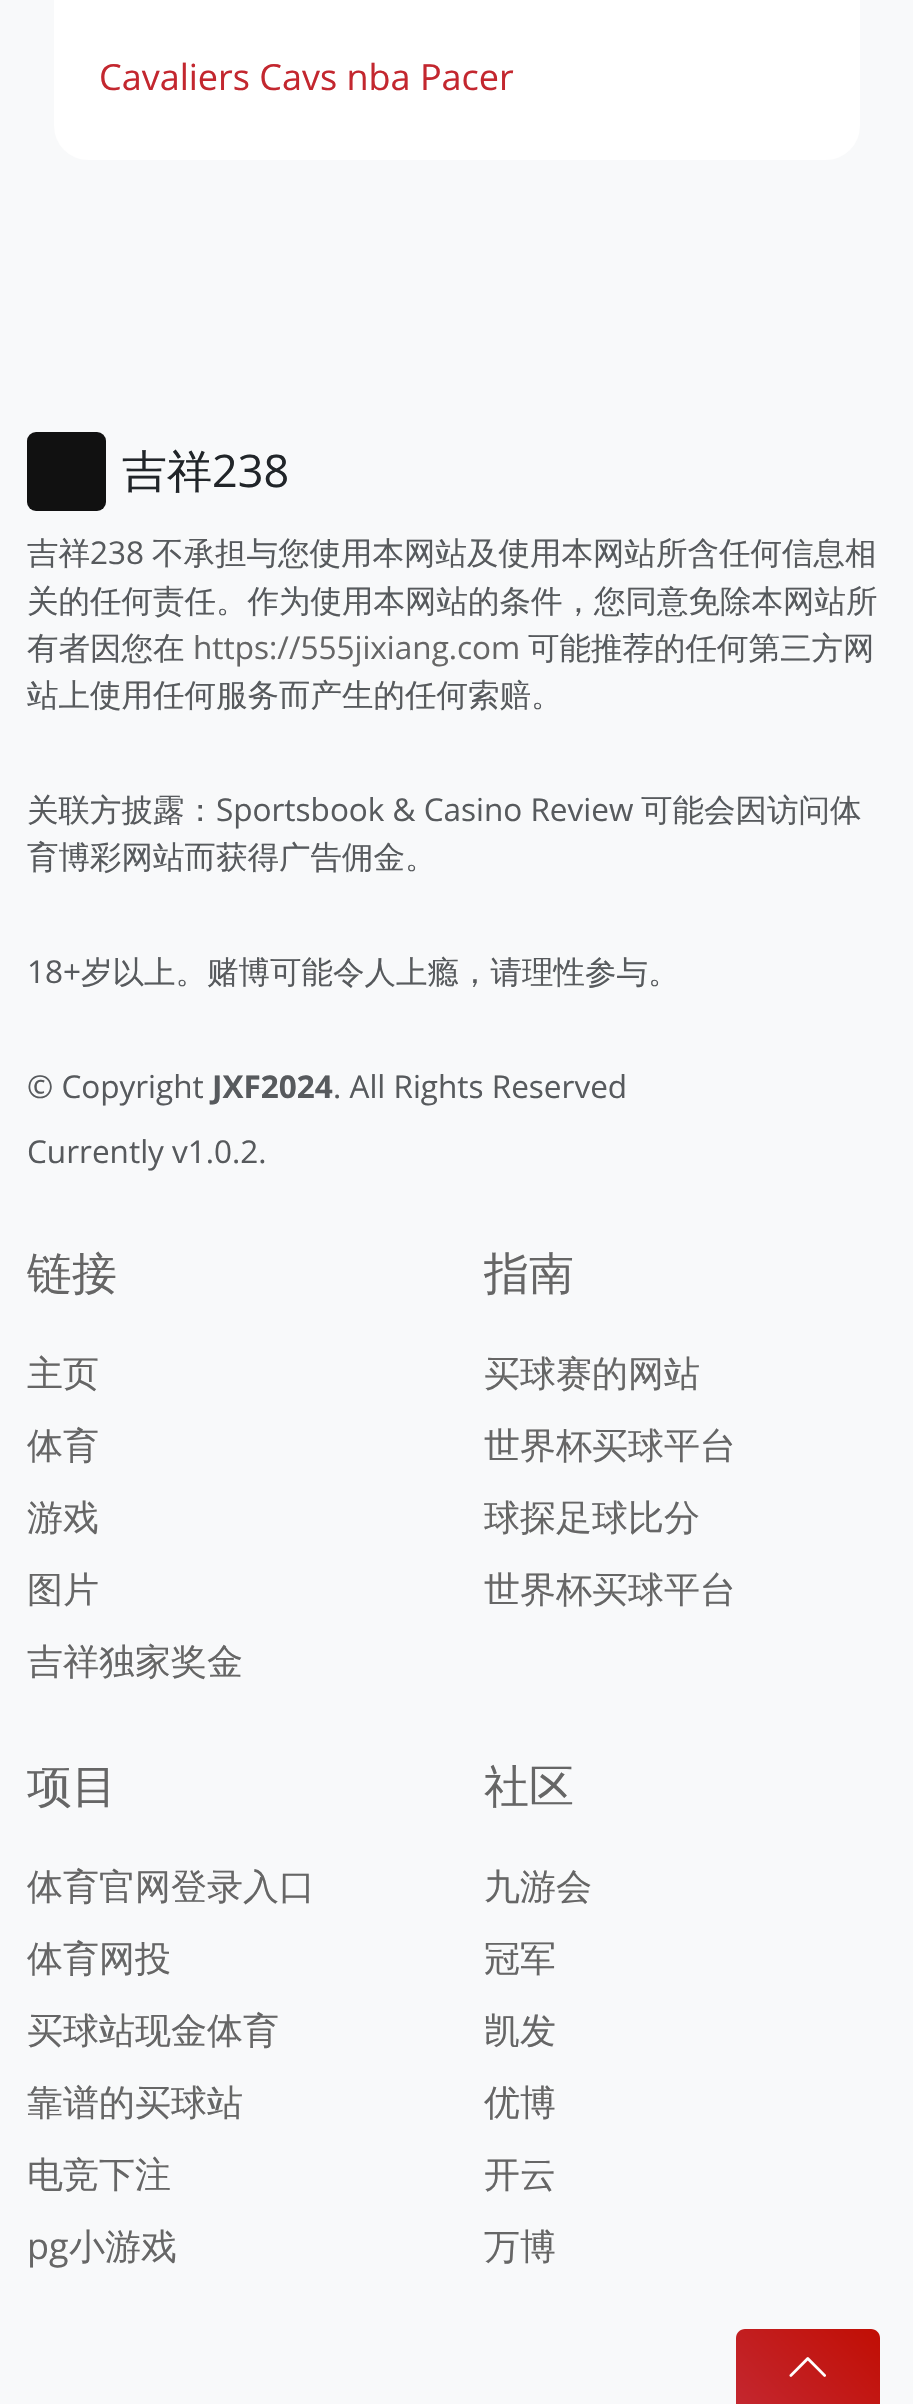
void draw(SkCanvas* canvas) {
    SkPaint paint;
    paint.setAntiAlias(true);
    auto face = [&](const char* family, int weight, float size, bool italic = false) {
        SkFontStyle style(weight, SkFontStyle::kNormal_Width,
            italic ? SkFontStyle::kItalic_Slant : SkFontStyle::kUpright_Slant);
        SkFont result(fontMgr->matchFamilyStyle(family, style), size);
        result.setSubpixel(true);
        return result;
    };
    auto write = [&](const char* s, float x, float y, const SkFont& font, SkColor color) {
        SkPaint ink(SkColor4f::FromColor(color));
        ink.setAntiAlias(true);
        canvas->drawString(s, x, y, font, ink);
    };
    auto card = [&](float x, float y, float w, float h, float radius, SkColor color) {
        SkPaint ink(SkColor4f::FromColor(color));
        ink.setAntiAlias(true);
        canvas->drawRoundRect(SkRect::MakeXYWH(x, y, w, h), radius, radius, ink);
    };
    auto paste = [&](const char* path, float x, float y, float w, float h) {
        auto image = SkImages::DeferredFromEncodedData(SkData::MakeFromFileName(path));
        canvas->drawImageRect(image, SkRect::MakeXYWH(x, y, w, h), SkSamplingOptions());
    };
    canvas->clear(SkColorSetRGB(248, 249, 250));
    card(54, -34, 806, 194, 34, SK_ColorWHITE);
    auto kFont1 = face("Open Sans", 400, 36);
    write("Cavaliers Cavs nba Pacer", 99, 90, kFont1, SkColorSetRGB(195, 39, 47));
    card(27, 432, 79, 79, 9, SkColorSetRGB(17, 17, 17));
    auto kFont2 = face("WenQuanYi Zen Hei", 500, 45);
    write("吉祥", 122, 487, kFont2, SkColorSetRGB(33, 37, 41));
    auto kFont3 = face("Open Sans", 400, 45);
    write("238", 212, 487, kFont3, SkColorSetRGB(33, 37, 41));
    auto kFont4 = face("WenQuanYi Zen Hei", 500, 31.5f);
    write("吉祥", 27, 564, kFont4, SkColorSetRGB(87, 90, 93));
    auto kFont5 = face("Open Sans", 400, 31.5f);
    write("238", 90, 564, kFont5, SkColorSetRGB(87, 90, 93));
    write("不承担与您使用本网站及使用本网站所含任何信息相", 152, 564, kFont4, SkColorSetRGB(87, 90, 93));
    write("关的任何责任。作为使用本网站的条件，您同意免除本网站所", 27, 612, kFont4, SkColorSetRGB(87, 90, 93));
    write("有者因您在", 27, 659, kFont4, SkColorSetRGB(87, 90, 93));
    write("https://555jixiang.com", 193, 659, kFont5, SkColorSetRGB(102, 102, 102));
    write("可能推荐的任何第三方网", 528, 659, kFont4, SkColorSetRGB(87, 90, 93));
    write("站上使用任何服务而产生的任何索赔。", 27, 706, kFont4, SkColorSetRGB(87, 90, 93));
    write("关联方披露：", 27, 821, kFont4, SkColorSetRGB(87, 90, 93));
    write("Sportsbook & Casino Review", 216, 821, kFont5, SkColorSetRGB(87, 90, 93));
    write("可能会因访问体", 641, 821, kFont4, SkColorSetRGB(87, 90, 93));
    write("育博彩网站而获得广告佣金。", 27, 868, kFont4, SkColorSetRGB(87, 90, 93));
    write("18+", 27, 983, kFont5, SkColorSetRGB(87, 90, 93));
    write("岁以上。赌博可能令人上瘾，请理性参与。", 81, 983, kFont4, SkColorSetRGB(87, 90, 93));
    write("© Copyright", 27, 1098, kFont5, SkColorSetRGB(87, 90, 93));
    auto kFont6 = face("Open Sans", 700, 31.5f);
    write("JXF2024", 212, 1098, kFont6, SkColorSetRGB(87, 90, 93));
    write(". All Rights Reserved", 333, 1098, kFont5, SkColorSetRGB(87, 90, 93));
    write("Currently v1.0.2.", 27, 1163, kFont5, SkColorSetRGB(87, 90, 93));
    write("链接", 27, 1289, kFont2, SkColorSetRGB(102, 102, 102));
    auto kFont7 = face("WenQuanYi Zen Hei", 500, 36);
    write("主页", 27, 1386, kFont7, SkColorSetRGB(102, 102, 102));
    write("体育", 27, 1458, kFont7, SkColorSetRGB(102, 102, 102));
    write("游戏", 27, 1530, kFont7, SkColorSetRGB(102, 102, 102));
    write("图片", 27, 1602, kFont7, SkColorSetRGB(102, 102, 102));
    write("吉祥独家奖金", 27, 1674, kFont7, SkColorSetRGB(102, 102, 102));
    write("指南", 484, 1289, kFont2, SkColorSetRGB(102, 102, 102));
    write("买球赛的网站", 484, 1386, kFont7, SkColorSetRGB(102, 102, 102));
    write("世界杯买球平台", 484, 1458, kFont7, SkColorSetRGB(102, 102, 102));
    write("球探足球比分", 484, 1530, kFont7, SkColorSetRGB(102, 102, 102));
    write("世界杯买球平台", 484, 1602, kFont7, SkColorSetRGB(102, 102, 102));
    write("项目", 27, 1802, kFont2, SkColorSetRGB(102, 102, 102));
    write("体育官网登录入口", 27, 1899, kFont7, SkColorSetRGB(102, 102, 102));
    write("体育网投", 27, 1971, kFont7, SkColorSetRGB(102, 102, 102));
    write("买球站现金体育", 27, 2043, kFont7, SkColorSetRGB(102, 102, 102));
    write("靠谱的买球站", 27, 2115, kFont7, SkColorSetRGB(102, 102, 102));
    write("电竞下注", 27, 2187, kFont7, SkColorSetRGB(102, 102, 102));
    write("pg", 27, 2259, kFont1, SkColorSetRGB(102, 102, 102));
    write("小游戏", 69, 2259, kFont7, SkColorSetRGB(102, 102, 102));
    write("社区", 484, 1802, kFont2, SkColorSetRGB(102, 102, 102));
    write("九游会", 484, 1899, kFont7, SkColorSetRGB(102, 102, 102));
    write("冠军", 484, 1971, kFont7, SkColorSetRGB(102, 102, 102));
    write("凯发", 484, 2043, kFont7, SkColorSetRGB(102, 102, 102));
    write("优博", 484, 2115, kFont7, SkColorSetRGB(102, 102, 102));
    write("开云", 484, 2187, kFont7, SkColorSetRGB(102, 102, 102));
    write("万博", 484, 2259, kFont7, SkColorSetRGB(102, 102, 102));
    {
        const SkColor colors[] = {SkColorSetRGB(195, 39, 47), SkColorSetRGB(193, 14, 4)};
        const float stops[] = {0, 1};
        const SkPoint ends[] = {{753, 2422}, {863, 2312}};
        paint.setShader(SkGradientShader::MakeLinear(ends, colors, stops, 2, SkTileMode::kClamp));
        paint.setAlpha(255);
    }
    canvas->drawPath(SkPathBuilder().moveTo(745, 2329).lineTo(871, 2329).cubicTo(876, 2329, 880, 2333, 880, 2338).lineTo(880, 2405).lineTo(736, 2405).lineTo(736, 2338).cubicTo(736, 2333, 740, 2329, 745, 2329).close().detach(), paint);
    paste("pic1.png", 789, 2357, 37, 20);
}
